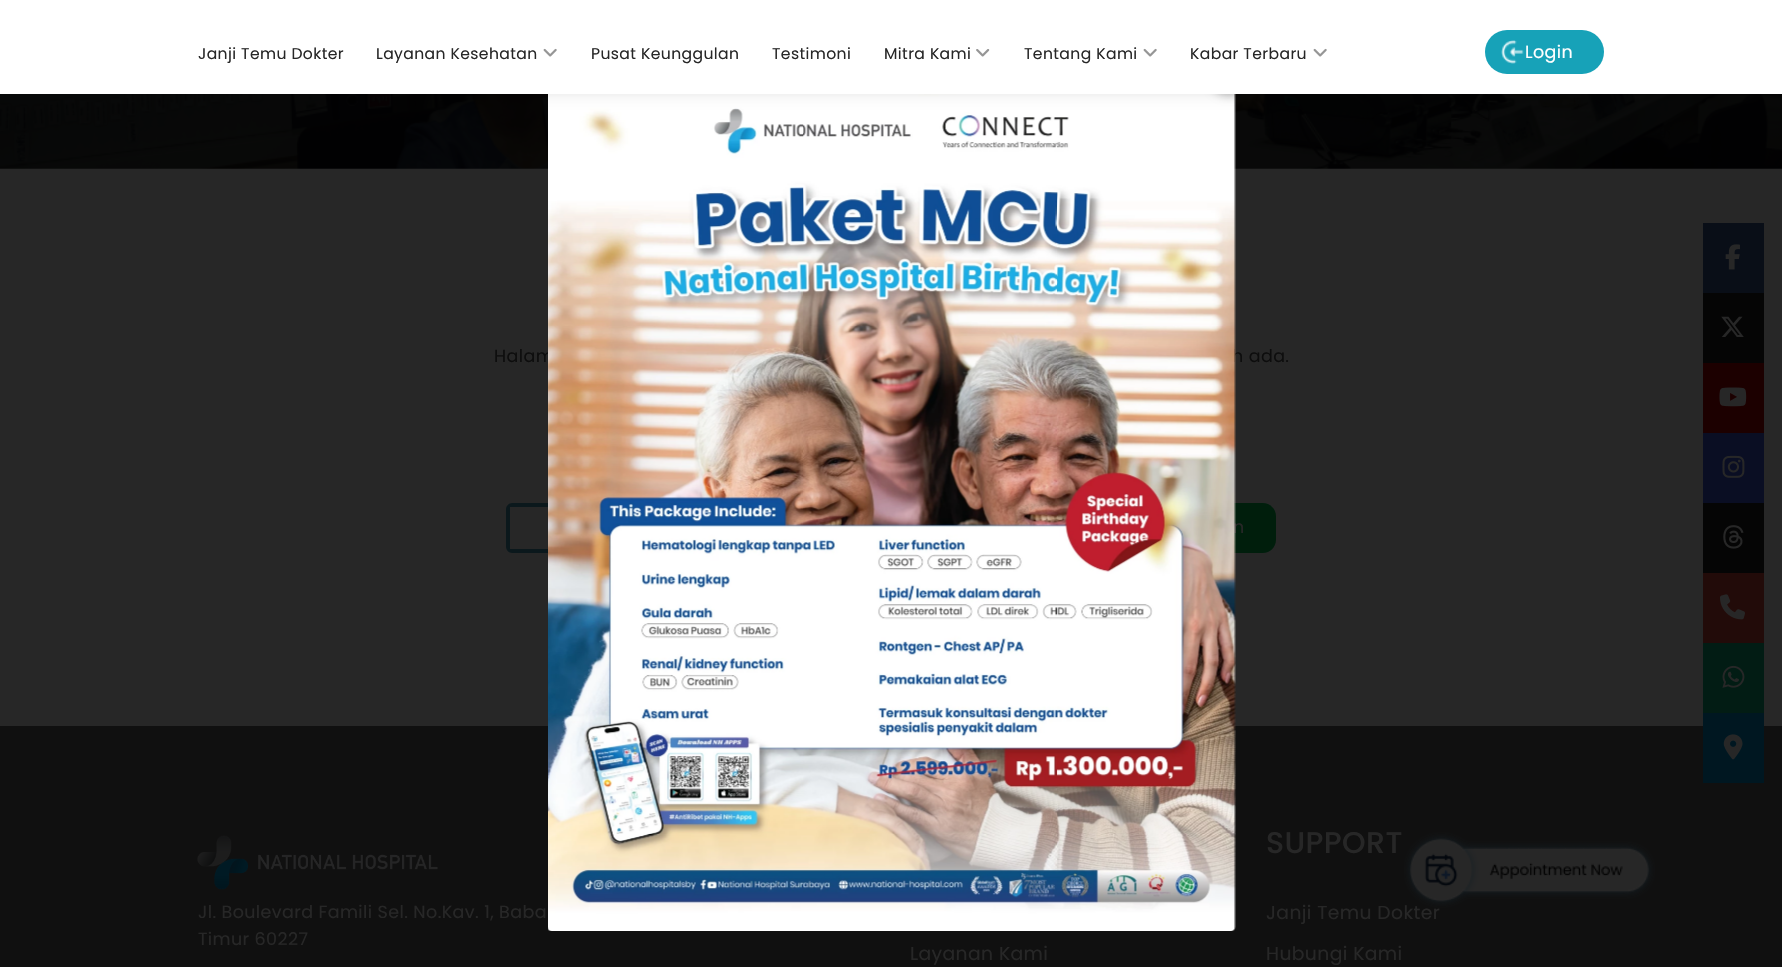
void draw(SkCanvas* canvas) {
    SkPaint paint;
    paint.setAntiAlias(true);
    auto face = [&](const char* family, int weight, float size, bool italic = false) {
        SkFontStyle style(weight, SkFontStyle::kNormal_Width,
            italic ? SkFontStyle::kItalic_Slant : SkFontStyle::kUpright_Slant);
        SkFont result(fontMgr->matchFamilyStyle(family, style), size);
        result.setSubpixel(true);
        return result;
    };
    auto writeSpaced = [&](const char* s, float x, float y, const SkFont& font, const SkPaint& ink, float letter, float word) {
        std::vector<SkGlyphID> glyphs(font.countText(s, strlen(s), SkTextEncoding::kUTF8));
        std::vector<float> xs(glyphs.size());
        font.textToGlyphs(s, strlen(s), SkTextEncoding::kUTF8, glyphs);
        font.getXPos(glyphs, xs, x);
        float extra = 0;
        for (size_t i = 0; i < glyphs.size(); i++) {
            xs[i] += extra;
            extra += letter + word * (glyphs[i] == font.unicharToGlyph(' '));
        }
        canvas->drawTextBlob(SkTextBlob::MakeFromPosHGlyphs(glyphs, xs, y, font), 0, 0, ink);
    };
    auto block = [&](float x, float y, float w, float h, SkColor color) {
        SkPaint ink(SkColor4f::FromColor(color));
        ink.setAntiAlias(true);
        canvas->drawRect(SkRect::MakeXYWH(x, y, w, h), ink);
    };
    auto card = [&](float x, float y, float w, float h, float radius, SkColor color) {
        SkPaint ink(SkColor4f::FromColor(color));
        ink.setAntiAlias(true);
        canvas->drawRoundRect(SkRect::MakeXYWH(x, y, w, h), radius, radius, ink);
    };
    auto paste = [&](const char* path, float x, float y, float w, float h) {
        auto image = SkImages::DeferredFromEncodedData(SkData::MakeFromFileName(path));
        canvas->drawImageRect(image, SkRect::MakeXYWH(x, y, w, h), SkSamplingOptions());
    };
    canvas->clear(SkColorSetRGB(39, 39, 39));
    paste("pic5.png", 0, 94, 1782, 75);
    auto kFont1 = face("Poppins", 400, 17.5f);
    paint.setColor(SkColorSetRGB(13, 13, 13));
    writeSpaced("Halam", 494, 362, kFont1, paint, 0.4f, 0);
    writeSpaced("h ada.", 1232, 362, kFont1, paint, 0.4f, 0);
    paint.setColor(SkColorSetRGB(11, 24, 28));
    canvas->drawPath(SkPathBuilder(SkPathFillType::kEvenOdd).moveTo(512, 503).cubicTo(509, 503, 506, 506, 506, 509).lineTo(506, 547).cubicTo(506, 550, 509, 553, 512, 553).lineTo(866, 553).lineTo(866, 503).close().moveTo(510, 507).lineTo(510, 549).lineTo(862, 549).lineTo(862, 507).close().detach(), paint);
    paint.setColor(SkColorSetRGB(0, 30, 12));
    canvas->drawPath(SkPathBuilder().moveTo(1036, 503).lineTo(1263, 503).cubicTo(1270, 503, 1276, 509, 1276, 516).lineTo(1276, 540).cubicTo(1276, 547, 1270, 553, 1263, 553).lineTo(1036, 553).close().detach(), paint);
    paint.setColor(SkColorSetRGB(39, 39, 39));
    writeSpaced("n", 1233, 533, kFont1, paint, 0.4f, 0);
    block(0, 726, 1782, 241, SkColorSetRGB(16, 16, 16));
    paste("pic1.png", 548, 94, 688, 837);
    paint.setColor(SkColorSetARGB(61, 0, 0, 0));
    paint.setMaskFilter(SkMaskFilter::MakeBlur(kNormal_SkBlurStyle, 4));
    canvas->drawRoundRect(SkRect::MakeXYWH(1209, 56, 40, 40), 20, 20, paint);
    paint.setMaskFilter(nullptr);
    paint.setColor(SkColorSetARGB(102, 0, 0, 0));
    paint.setMaskFilter(SkMaskFilter::MakeBlur(kNormal_SkBlurStyle, 12.5f));
    canvas->drawRect(SkRect::MakeXYWH(13, 13, 1757, 68), paint);
    paint.setMaskFilter(nullptr);
    block(0, 0, 1782, 94, SK_ColorWHITE);
    auto kFont2 = face("Poppins", 400, 15.6f);
    paint.setColor(SkColorSetRGB(39, 39, 39));
    writeSpaced("Janji Temu Dokter", 198, 59, kFont2, paint, 0.4f, 0);
    writeSpaced("Layanan Kesehatan", 376, 59, kFont2, paint, 0.4f, 0);
    paste("pic2.png", 543, 48, 14, 9);
    writeSpaced("Pusat Keunggulan", 591, 59, kFont2, paint, 0.4f, 0);
    writeSpaced("Testimoni", 772, 59, kFont2, paint, 0.4f, 0);
    writeSpaced("Mitra Kami", 884, 59, kFont2, paint, 0.4f, 0);
    paste("pic3.png", 976, 49, 14, 8);
    writeSpaced("Tentang Kami", 1024, 59, kFont2, paint, 0.4f, 0);
    paste("pic2.png", 1143, 48, 14, 9);
    writeSpaced("Kabar Terbaru", 1190, 59, kFont2, paint, 0.4f, 0);
    paste("pic2.png", 1313, 48, 14, 9);
    card(1485, 30, 119, 44, 22, SkColorSetRGB(23, 162, 184));
    paste("pic4.png", 1501, 40, 23, 24);
    paint.setColor(SK_ColorWHITE);
    writeSpaced("Login", 1525, 58, kFont1, paint, 0.4f, 0);
    block(1703, 223, 61, 70, SkColorSetRGB(9, 14, 23));
    paste("pic6.png", 1725, 244, 15, 26);
    block(1703, 293, 61, 70, SkColorSetRGB(5, 5, 5));
    paste("pic7.png", 1721, 316, 23, 21);
    block(1703, 363, 61, 70, SkColorSetRGB(28, 0, 0));
    paste("pic8.png", 1719, 387, 28, 20);
    block(1703, 433, 61, 70, SkColorSetRGB(10, 14, 35));
    paste("pic9.png", 1722, 455, 23, 23);
    block(1703, 503, 61, 70, SkColorSetRGB(5, 5, 5));
    paste("pic10.png", 1723, 525, 21, 24);
    block(1703, 573, 61, 70, SkColorSetRGB(34, 11, 9));
    paste("pic11.png", 1720, 594, 25, 26);
    block(1703, 643, 61, 70, SkColorSetRGB(2, 28, 20));
    paste("pic12.png", 1722, 665, 23, 23);
    block(1703, 713, 61, 70, SkColorSetRGB(0, 23, 33));
    paste("pic13.png", 1723, 734, 20, 26);
    paste("pic14.png", 197, 835, 241, 55);
    paint.setColor(SkColorSetRGB(39, 39, 39));
    writeSpaced("Jl. Boulevard Famili Sel. No.Kav. 1, Baba", 198, 918, kFont1, paint, 0.4f, 0);
    writeSpaced("Timur 60227", 198, 945, kFont1, paint, 0.4f, 0);
    auto kFont3 = face("Poppins", 500, 30);
    writeSpaced("SUPPORT", 1266, 853, kFont3, paint, 0.4f, 0);
    auto kFont4 = face("Poppins", 400, 18.75f);
    writeSpaced("Janji Temu Dokter", 1266, 919, kFont4, paint, 0.4f, 0);
    writeSpaced("Hubungi Kami", 1266, 960, kFont4, paint, 0.4f, 0);
    writeSpaced("Layanan Kami", 910, 960, kFont4, paint, 0.4f, 0);
    paste("pic15.png", 1404, 832, 251, 76);
}
